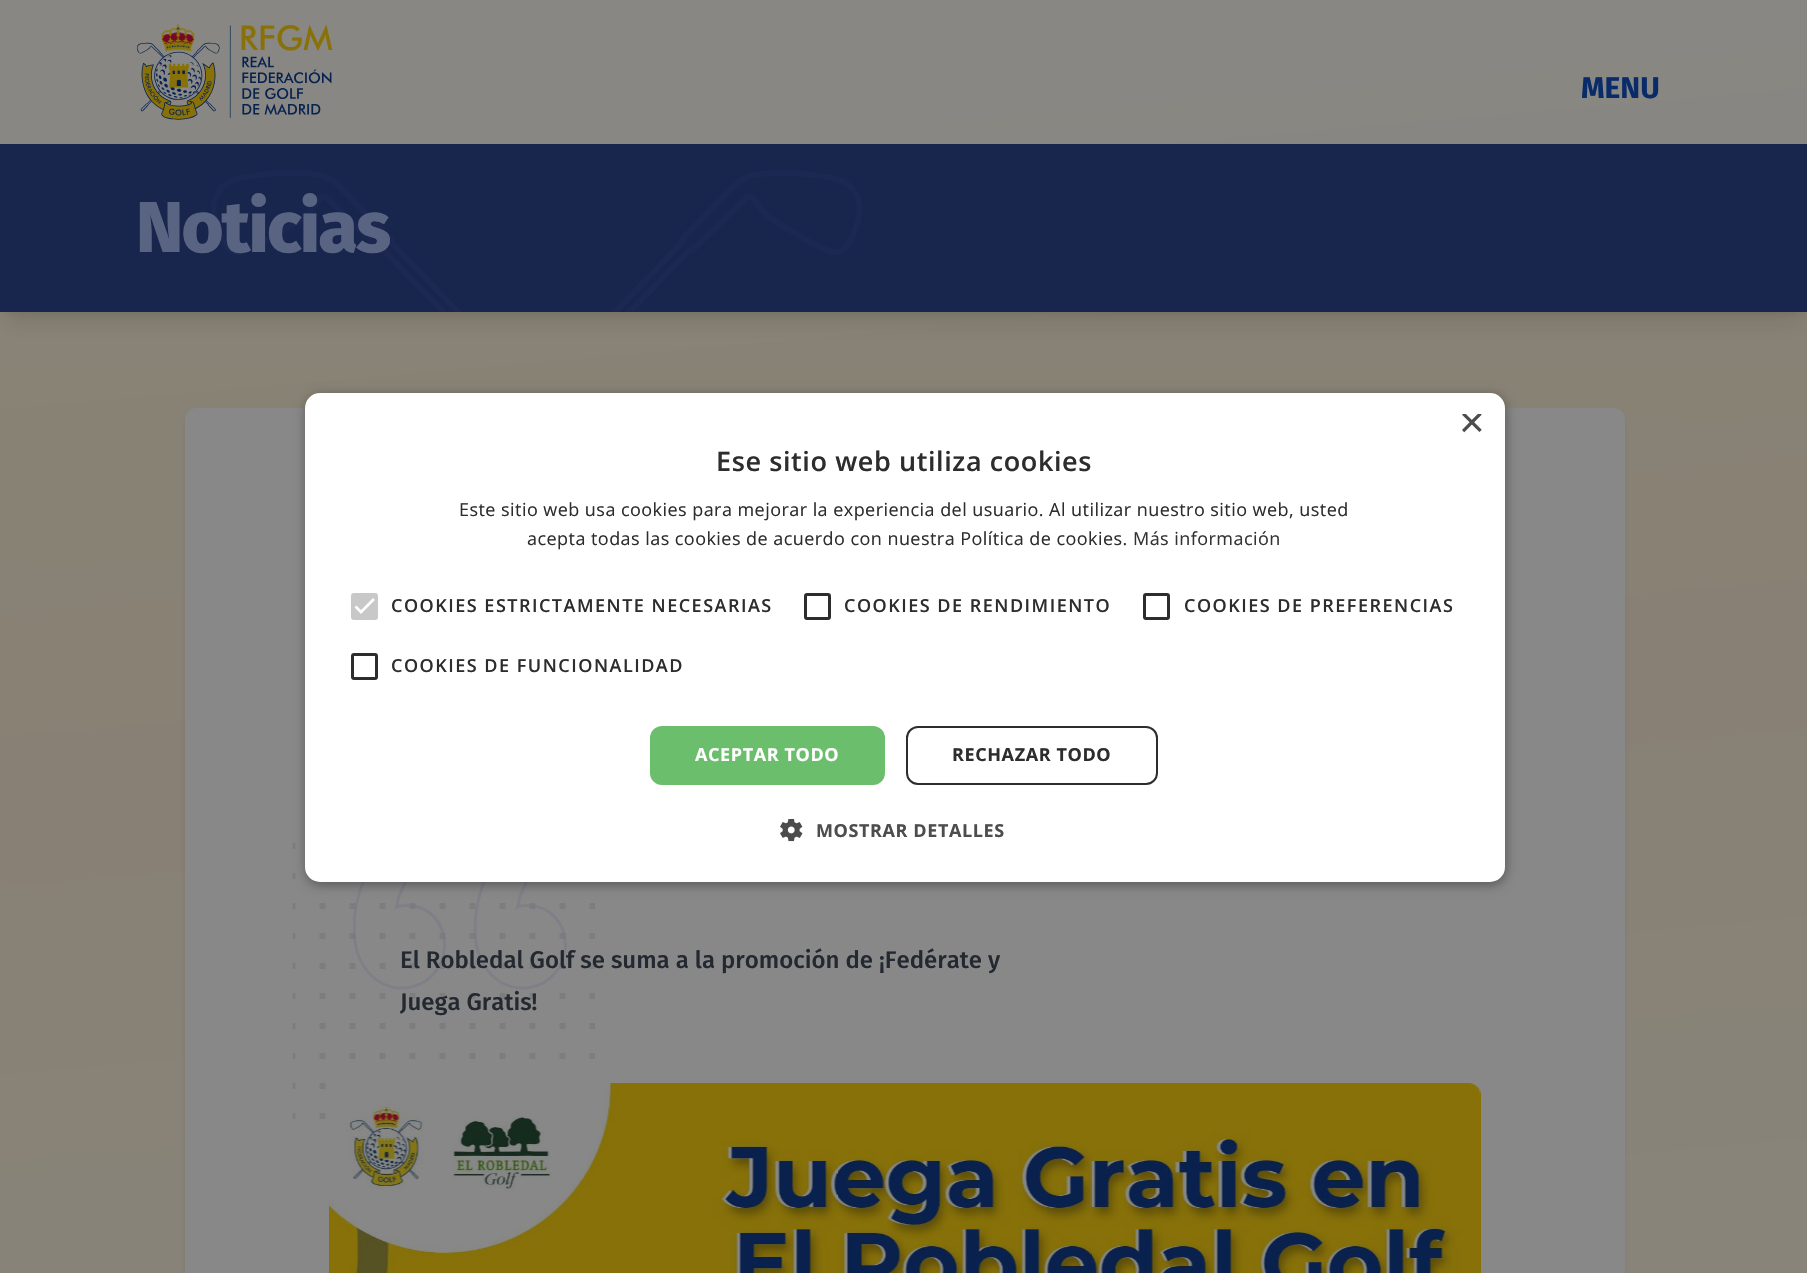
void draw(SkCanvas* canvas) {
    SkPaint paint;
    paint.setAntiAlias(true);
    auto face = [&](const char* family, int weight, float size, bool italic = false) {
        SkFontStyle style(weight, SkFontStyle::kNormal_Width,
            italic ? SkFontStyle::kItalic_Slant : SkFontStyle::kUpright_Slant);
        SkFont result(fontMgr->matchFamilyStyle(family, style), size);
        result.setSubpixel(true);
        return result;
    };
    auto write = [&](const char* s, float x, float y, const SkFont& font, SkColor color) {
        SkPaint ink(SkColor4f::FromColor(color));
        ink.setAntiAlias(true);
        canvas->drawString(s, x, y, font, ink);
    };
    auto writeSpaced = [&](const char* s, float x, float y, const SkFont& font, const SkPaint& ink, float letter, float word) {
        std::vector<SkGlyphID> glyphs(font.countText(s, strlen(s), SkTextEncoding::kUTF8));
        std::vector<float> xs(glyphs.size());
        font.textToGlyphs(s, strlen(s), SkTextEncoding::kUTF8, glyphs);
        font.getXPos(glyphs, xs, x);
        float extra = 0;
        for (size_t i = 0; i < glyphs.size(); i++) {
            xs[i] += extra;
            extra += letter + word * (glyphs[i] == font.unicharToGlyph(' '));
        }
        canvas->drawTextBlob(SkTextBlob::MakeFromPosHGlyphs(glyphs, xs, y, font), 0, 0, ink);
    };
    auto block = [&](float x, float y, float w, float h, SkColor color) {
        SkPaint ink(SkColor4f::FromColor(color));
        ink.setAntiAlias(true);
        canvas->drawRect(SkRect::MakeXYWH(x, y, w, h), ink);
    };
    auto card = [&](float x, float y, float w, float h, float radius, SkColor color) {
        SkPaint ink(SkColor4f::FromColor(color));
        ink.setAntiAlias(true);
        canvas->drawRoundRect(SkRect::MakeXYWH(x, y, w, h), radius, radius, ink);
    };
    auto paste = [&](const char* path, float x, float y, float w, float h) {
        auto image = SkImages::DeferredFromEncodedData(SkData::MakeFromFileName(path));
        canvas->drawImageRect(image, SkRect::MakeXYWH(x, y, w, h), SkSamplingOptions());
    };
    canvas->clear(SK_ColorWHITE);
    {
        const SkColor colors[] = {SkColorSetRGB(136, 133, 118), SkColorSetRGB(136, 128, 116), SkColorSetRGB(136, 134, 124), SkColorSetRGB(136, 134, 126), SkColorSetRGB(136, 134, 126), SkColorSetRGB(136, 135, 129), SkColorSetRGB(136, 135, 131), SkColorSetRGB(136, 136, 134), SkColorSetRGB(136, 136, 134), SkColorSetRGB(136, 136, 136)};
        const float stops[] = {0, 0.11f, 0.22f, 0.33f, 0.44f, 0.56f, 0.67f, 0.78f, 0.89f, 1};
        const SkPoint ends[] = {{581, -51}, {1227, 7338}};
        paint.setShader(SkGradientShader::MakeLinear(ends, colors, stops, 10, SkTileMode::kClamp));
        paint.setAlpha(255);
    }
    canvas->drawRect(SkRect::MakeXYWH(0, 0, 1807, 1273), paint);
    paint.setShader(nullptr);
    paint.setColor(SkColorSetARGB(26, 9, 9, 9));
    paint.setMaskFilter(SkMaskFilter::MakeBlur(kNormal_SkBlurStyle, 4.5f));
    canvas->drawRect(SkRect::MakeXYWH(6, 156, 1796, 156), paint);
    paint.setMaskFilter(nullptr);
    paint.setMaskFilter(SkMaskFilter::MakeBlur(kNormal_SkBlurStyle, 11));
    canvas->drawRect(SkRect::MakeXYWH(5, 164, 1798, 159), paint);
    paint.setMaskFilter(nullptr);
    block(0, 0, 1807, 144, SkColorSetARGB(179, 136, 136, 136));
    paste("pic1.png", 137, 24, 196, 96);
    auto kFont1 = face("Fira Sans", 700, 30);
    write("MENU", 1581, 98, kFont1, SkColorSetRGB(9, 43, 105));
    block(0, 144, 1807, 168, SkColorSetRGB(24, 38, 78));
    paste("pic2.png", 211, 170, 651, 142);
    auto kFont2 = face("Fira Sans", 800, 72);
    paint.setColor(SkColorSetRGB(89, 99, 130));
    writeSpaced("Noticias", 136, 252, kFont2, paint, -1.75f, 0);
    paint.setColor(SkColorSetARGB(26, 9, 9, 9));
    paint.setMaskFilter(SkMaskFilter::MakeBlur(kNormal_SkBlurStyle, 4.5f));
    canvas->drawRoundRect(SkRect::MakeXYWH(186, 416, 1437, 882), 11, 11, paint);
    paint.setMaskFilter(nullptr);
    card(185, 408, 1440, 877, 12, SkColorSetRGB(136, 136, 136));
    paste("pic4.png", 292, 843, 303, 276);
    canvas->save();
    canvas->clipRect(SkRect::MakeXYWH(353, 819, 216, 192));
    paint.setStyle(SkPaint::kStroke_Style);
    paint.setStrokeWidth(3);
    paint.setColor(SkColorSetARGB(128, 117, 119, 133));
    canvas->drawPath(SkPathBuilder().moveTo(414.5f, 817.5f).cubicTo(379, 842.5f, 354, 884, 354, 929).cubicTo(354, 966, 376.5f, 988, 402, 988).cubicTo(426.5f, 988, 444.5f, 968.5f, 444.5f, 945).cubicTo(444.5f, 922, 428.5f, 905.5f, 407.5f, 905.5f).cubicTo(403.5f, 905.5f, 398, 906, 396.5f, 907).cubicTo(400, 883, 422.5f, 855, 444.5f, 841).close().moveTo(535, 817.5f).cubicTo(500, 842.5f, 475, 884, 475, 929).cubicTo(475, 966, 497, 988, 523, 988).cubicTo(546.5f, 988, 565.5f, 968.5f, 565.5f, 945).cubicTo(565.5f, 922, 548.5f, 905.5f, 528, 905.5f).cubicTo(523.5f, 905.5f, 518.5f, 906, 517.5f, 907).cubicTo(521, 883, 542.5f, 855, 565, 841).close().detach(), paint);
    canvas->restore();
    paint.setStyle(SkPaint::kFill_Style);
    paint.setColor(SkColorSetARGB(89, 0, 0, 0));
    paint.setMaskFilter(SkMaskFilter::MakeBlur(kNormal_SkBlurStyle, 6));
    canvas->drawRoundRect(SkRect::MakeXYWH(306, 396, 1200, 489), 15, 15, paint);
    paint.setMaskFilter(nullptr);
    card(305, 393, 1200, 489, 15, SK_ColorWHITE);
    canvas->save();
    canvas->clipRect(SkRect::MakeXYWH(1460, 414, 22, 23));
    auto kFont3 = face("Liberation Sans", 400, 44);
    write("×", 1459, 437, kFont3, SkColorSetRGB(77, 77, 77));
    canvas->restore();
    auto kFont4 = face("Open Sans", 600, 27);
    paint.setColor(SkColorSetRGB(45, 45, 45));
    writeSpaced("Ese sitio web utiliza cookies", 716, 471, kFont4, paint, 0.6f, 0);
    auto kFont5 = face("Open Sans", 400, 18);
    writeSpaced("Este sitio web usa cookies para mejorar la experiencia del usuario. Al utilizar nuestro sitio web, usted", 459, 516, kFont5, paint, 0.45f, 0);
    writeSpaced("acepta todas las cookies de acuerdo con nuestra Política de cookies.", 527, 545, kFont5, paint, 0.45f, 0);
    paint.setColor(SkColorSetRGB(51, 51, 51));
    writeSpaced("Más información", 1133, 545, kFont5, paint, 0.45f, 0);
    card(351, 593, 27, 27, 3, SkColorSetRGB(200, 200, 200));
    paint.setStyle(SkPaint::kStroke_Style);
    paint.setStrokeWidth(2.7f);
    paint.setColor(SK_ColorWHITE);
    canvas->drawPath(SkPathBuilder().moveTo(355.5f, 606.5f).lineTo(361, 612).lineTo(374, 599).detach(), paint);
    auto kFont6 = face("Open Sans", 600, 18);
    paint.setStyle(SkPaint::kFill_Style);
    paint.setColor(SkColorSetRGB(45, 45, 45));
    writeSpaced("COOKIES ESTRICTAMENTE NECESARIAS", 391, 612, kFont6, paint, 1.5f, 0);
    paint.setStyle(SkPaint::kStroke_Style);
    paint.setStrokeWidth(3);
    canvas->drawRoundRect(SkRect::MakeXYWH(805.5f, 594.5f, 24, 24), 1.5f, 1.5f, paint);
    paint.setStyle(SkPaint::kFill_Style);
    writeSpaced("COOKIES DE RENDIMIENTO", 844, 612, kFont6, paint, 1.5f, 0);
    paint.setStyle(SkPaint::kStroke_Style);
    canvas->drawRoundRect(SkRect::MakeXYWH(1144.5f, 594.5f, 24, 24), 1.5f, 1.5f, paint);
    paint.setStyle(SkPaint::kFill_Style);
    writeSpaced("COOKIES DE PREFERENCIAS", 1184, 612, kFont6, paint, 1.5f, 0);
    paint.setStyle(SkPaint::kStroke_Style);
    canvas->drawRoundRect(SkRect::MakeXYWH(352.5f, 654.5f, 24, 24), 1.5f, 1.5f, paint);
    paint.setStyle(SkPaint::kFill_Style);
    writeSpaced("COOKIES DE FUNCIONALIDAD", 391, 672, kFont6, paint, 1.5f, 0);
    card(650, 726, 235, 59, 12, SkColorSetRGB(107, 190, 107));
    auto kFont7 = face("Open Sans", 700, 18);
    paint.setColor(SK_ColorWHITE);
    writeSpaced("ACEPTAR TODO", 695, 761, kFont7, paint, 0.6f, 0);
    paint.setStyle(SkPaint::kStroke_Style);
    paint.setStrokeWidth(2);
    paint.setColor(SkColorSetRGB(45, 45, 45));
    canvas->drawRoundRect(SkRect::MakeXYWH(907, 727, 250, 57), 11, 11, paint);
    paint.setStyle(SkPaint::kFill_Style);
    writeSpaced("RECHAZAR TODO", 952, 761, kFont7, paint, 0.6f, 0);
    paste("pic3.png", 780, 819, 23, 23);
    paint.setColor(SkColorSetRGB(77, 77, 77));
    writeSpaced("MOSTRAR DETALLES", 816, 837, kFont7, paint, 0.6f, 0);
    auto kFont8 = face("Fira Sans", 500, 24);
    write("El Robledal Golf se suma a la promoción de ¡Fedérate y", 400, 968, kFont8, SkColorSetRGB(36, 41, 49));
    write("Juega Gratis!", 400, 1010, kFont8, SkColorSetRGB(36, 41, 49));
    paste("pic5.png", 329, 1083, 1152, 190);
}
